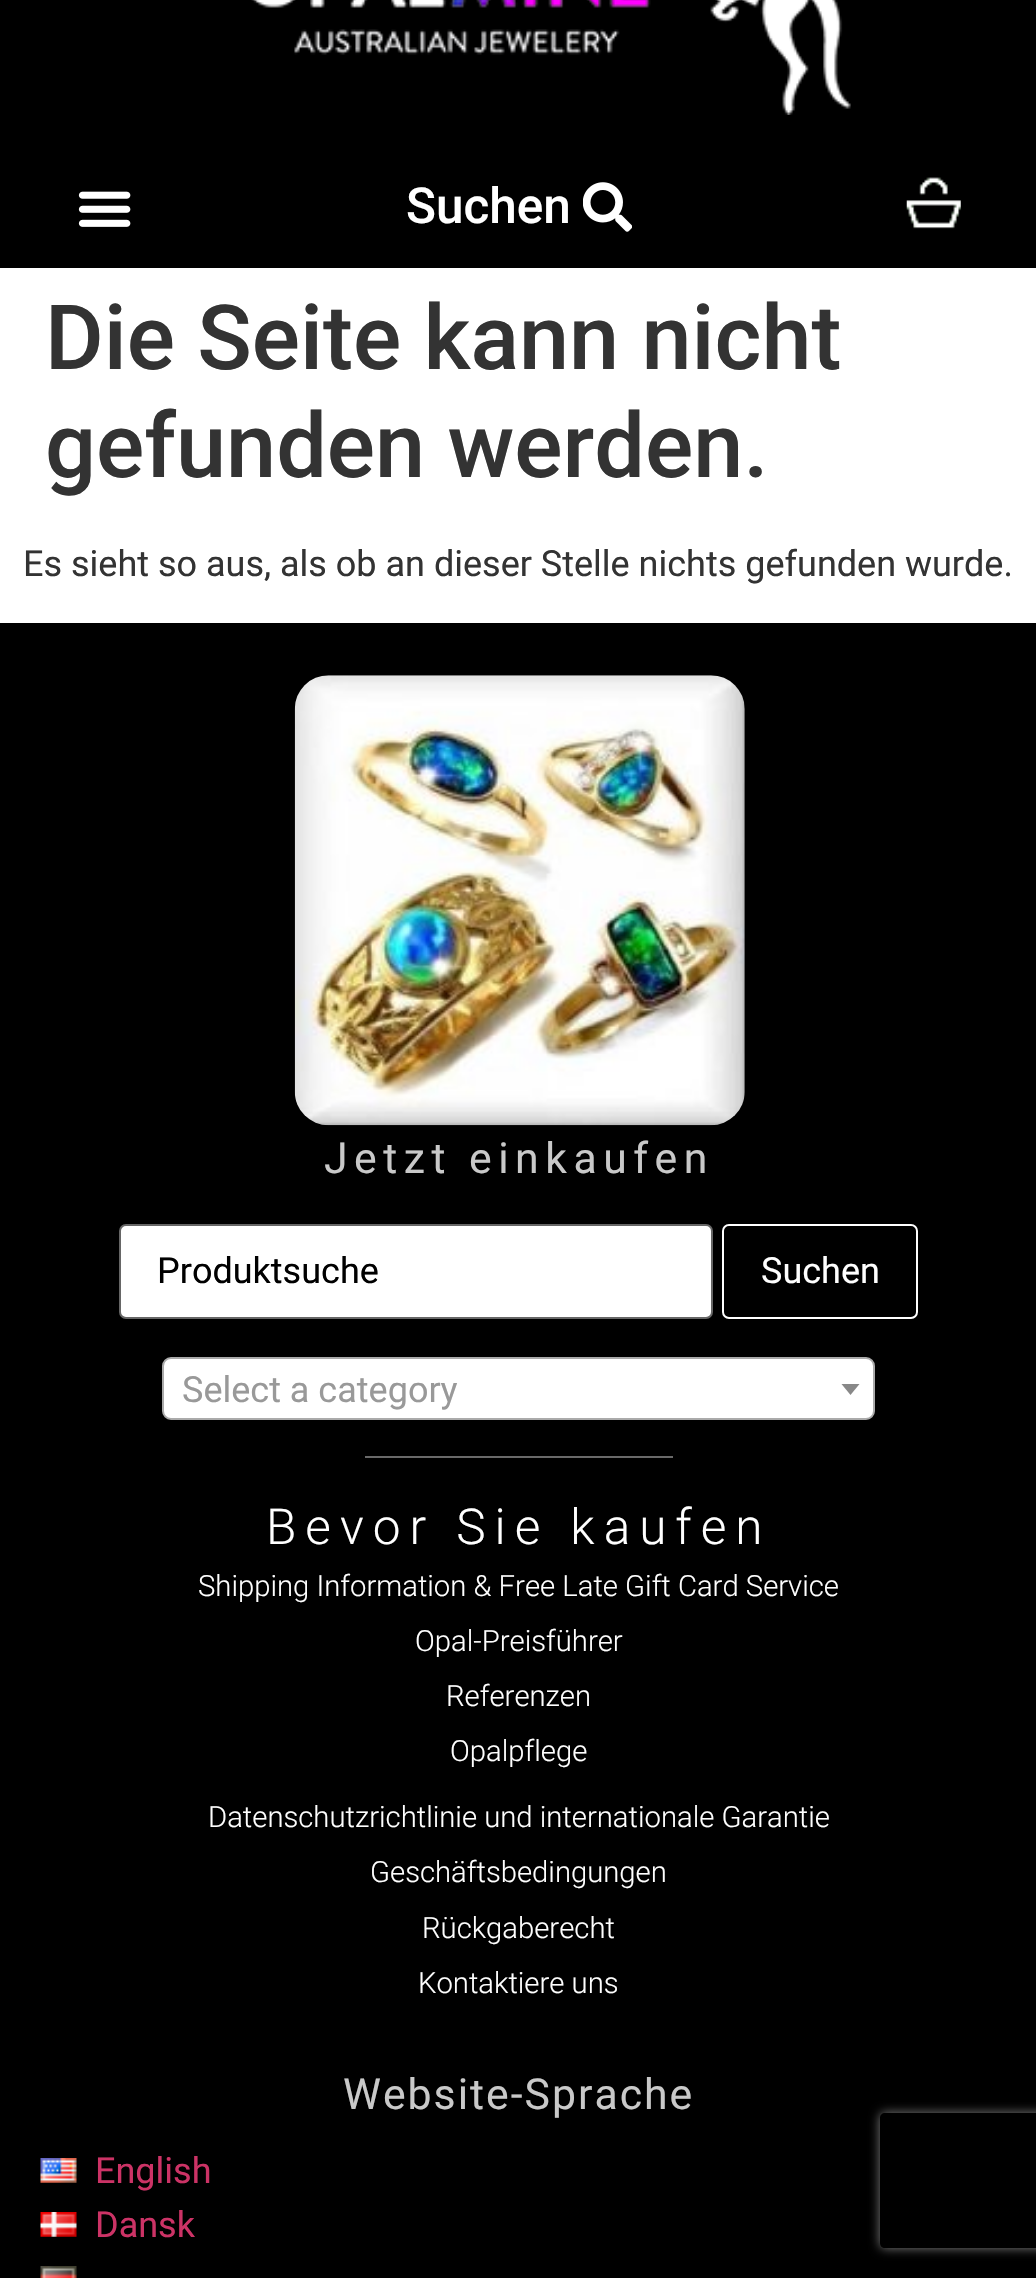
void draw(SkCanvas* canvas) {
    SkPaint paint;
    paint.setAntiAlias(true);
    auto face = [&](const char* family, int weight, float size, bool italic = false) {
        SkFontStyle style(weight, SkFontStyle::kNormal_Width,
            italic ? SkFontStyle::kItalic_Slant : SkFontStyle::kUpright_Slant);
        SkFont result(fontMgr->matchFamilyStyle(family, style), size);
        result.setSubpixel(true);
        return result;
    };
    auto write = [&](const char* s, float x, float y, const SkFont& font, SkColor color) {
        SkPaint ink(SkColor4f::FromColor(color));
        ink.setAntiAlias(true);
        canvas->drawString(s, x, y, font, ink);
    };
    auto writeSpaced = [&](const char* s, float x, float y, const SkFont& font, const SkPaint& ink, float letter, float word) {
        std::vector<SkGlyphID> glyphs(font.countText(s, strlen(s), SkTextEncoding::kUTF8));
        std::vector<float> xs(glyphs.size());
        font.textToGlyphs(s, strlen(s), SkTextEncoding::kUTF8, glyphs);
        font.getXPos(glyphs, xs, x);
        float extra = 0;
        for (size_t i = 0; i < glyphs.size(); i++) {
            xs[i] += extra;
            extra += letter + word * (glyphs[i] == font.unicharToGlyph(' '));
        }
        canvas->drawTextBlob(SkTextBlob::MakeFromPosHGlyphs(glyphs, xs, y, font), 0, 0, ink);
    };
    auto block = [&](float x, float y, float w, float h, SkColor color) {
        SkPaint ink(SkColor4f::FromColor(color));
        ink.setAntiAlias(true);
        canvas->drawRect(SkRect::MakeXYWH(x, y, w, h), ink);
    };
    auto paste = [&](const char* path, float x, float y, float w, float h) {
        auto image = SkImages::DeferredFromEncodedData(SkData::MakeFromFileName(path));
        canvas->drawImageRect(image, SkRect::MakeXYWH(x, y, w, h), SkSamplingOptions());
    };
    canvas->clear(SK_ColorWHITE);
    block(0, 0, 1036, 268, SK_ColorBLACK);
    paste("pic1.png", 251, 0, 600, 115);
    paste("pic2.png", 78, 191, 53, 36);
    auto kFont1 = face("Roboto", 500, 49.5f);
    write("Suchen", 406, 223, kFont1, SK_ColorWHITE);
    paste("pic3.png", 583, 182, 49, 50);
    paste("pic4.png", 906, 177, 55, 52);
    auto kFont2 = face("Roboto", 500, 90);
    write("Die Seite kann nicht", 45, 369, kFont2, SkColorSetRGB(51, 51, 51));
    write("gefunden werden.", 45, 477, kFont2, SkColorSetRGB(51, 51, 51));
    auto kFont3 = face("Roboto", 400, 36);
    write("Es sieht so aus, als ob an dieser Stelle nichts gefunden wurde.", 23, 576, kFont3, SkColorSetRGB(51, 51, 51));
    block(0, 623, 1036, 1655, SK_ColorBLACK);
    paste("pic5.png", 294, 675, 451, 451);
    auto kFont4 = face("Roboto", 400, 42.75f);
    paint.setColor(SkColorSetRGB(201, 201, 201));
    writeSpaced("Jetzt einkaufen", 324, 1173, kFont4, paint, 6.5f, 0);
    paint.setColor(SK_ColorWHITE);
    canvas->drawRoundRect(SkRect::MakeXYWH(120, 1225, 592, 93), 6, 6, paint);
    paint.setStyle(SkPaint::kStroke_Style);
    paint.setStrokeWidth(2);
    paint.setColor(SkColorSetRGB(102, 102, 102));
    canvas->drawRoundRect(SkRect::MakeXYWH(120, 1225, 592, 93), 6, 6, paint);
    write("Produktsuche", 157, 1283, kFont3, SK_ColorBLACK);
    paint.setColor(SK_ColorWHITE);
    canvas->drawRoundRect(SkRect::MakeXYWH(723, 1225, 194, 93), 6, 6, paint);
    write("Suchen", 761, 1283, kFont3, SK_ColorWHITE);
    paint.setStyle(SkPaint::kFill_Style);
    canvas->drawRoundRect(SkRect::MakeXYWH(163, 1358, 711, 61), 8, 8, paint);
    paint.setStyle(SkPaint::kStroke_Style);
    paint.setColor(SkColorSetRGB(170, 170, 170));
    canvas->drawRoundRect(SkRect::MakeXYWH(163, 1358, 711, 61), 8, 8, paint);
    write("Select a category", 182, 1402, kFont3, SkColorSetRGB(153, 153, 153));
    paint.setStyle(SkPaint::kFill_Style);
    paint.setColor(SkColorSetRGB(136, 136, 136));
    canvas->drawPath(SkPathBuilder().moveTo(841.5f, 1384).lineTo(859.5f, 1384).lineTo(850.5f, 1395).close().detach(), paint);
    block(365, 1456, 308, 2, SkColorSetRGB(105, 105, 105));
    auto kFont5 = face("Roboto", 300, 49.5f);
    paint.setColor(SK_ColorWHITE);
    writeSpaced("Bevor Sie kaufen", 266, 1544, kFont5, paint, 9, 0);
    auto kFont6 = face("Roboto", 300, 29.25f);
    write("Shipping Information & Free Late Gift Card Service", 198, 1596, kFont6, SK_ColorWHITE);
    write("Opal-Preisführer", 415, 1651, kFont6, SK_ColorWHITE);
    write("Referenzen", 446, 1706, kFont6, SK_ColorWHITE);
    write("Opalpflege", 450, 1761, kFont6, SK_ColorWHITE);
    write("Datenschutzrichtlinie und internationale Garantie", 208, 1827, kFont6, SK_ColorWHITE);
    write("Geschäftsbedingungen", 370, 1882, kFont6, SK_ColorWHITE);
    write("Rückgaberecht", 422, 1938, kFont6, SK_ColorWHITE);
    write("Kontaktiere uns", 418, 1993, kFont6, SK_ColorWHITE);
    paint.setColor(SkColorSetRGB(201, 201, 201));
    writeSpaced("Website-Sprache", 343, 2109, kFont4, paint, 2, 0);
    paste("pic6.png", 40, 2158, 37, 25);
    write("English", 95, 2183, kFont3, SkColorSetRGB(204, 51, 102));
    paste("pic7.png", 40, 2212, 37, 25);
    write("Dansk", 95, 2237, kFont3, SkColorSetRGB(204, 51, 102));
    paste("pic8.png", 40, 2266, 37, 12);
    canvas->save();
    canvas->clipPath(SkPathBuilder(SkPathFillType::kEvenOdd).moveTo(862, 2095).lineTo(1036, 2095).lineTo(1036, 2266).lineTo(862, 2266).close().moveTo(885, 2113).lineTo(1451, 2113).cubicTo(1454, 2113, 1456, 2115, 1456, 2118).lineTo(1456, 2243).cubicTo(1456, 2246, 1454, 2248, 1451, 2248).lineTo(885, 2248).cubicTo(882, 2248, 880, 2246, 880, 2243).lineTo(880, 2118).cubicTo(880, 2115, 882, 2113, 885, 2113).close().detach(), true);
    paint.setColor(SkColorSetRGB(128, 128, 128));
    paint.setMaskFilter(SkMaskFilter::MakeBlur(kNormal_SkBlurStyle, 5.5f));
    canvas->drawRoundRect(SkRect::MakeXYWH(880, 2113, 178, 135), 5, 5, paint);
    paint.setMaskFilter(nullptr);
    canvas->restore();
}
